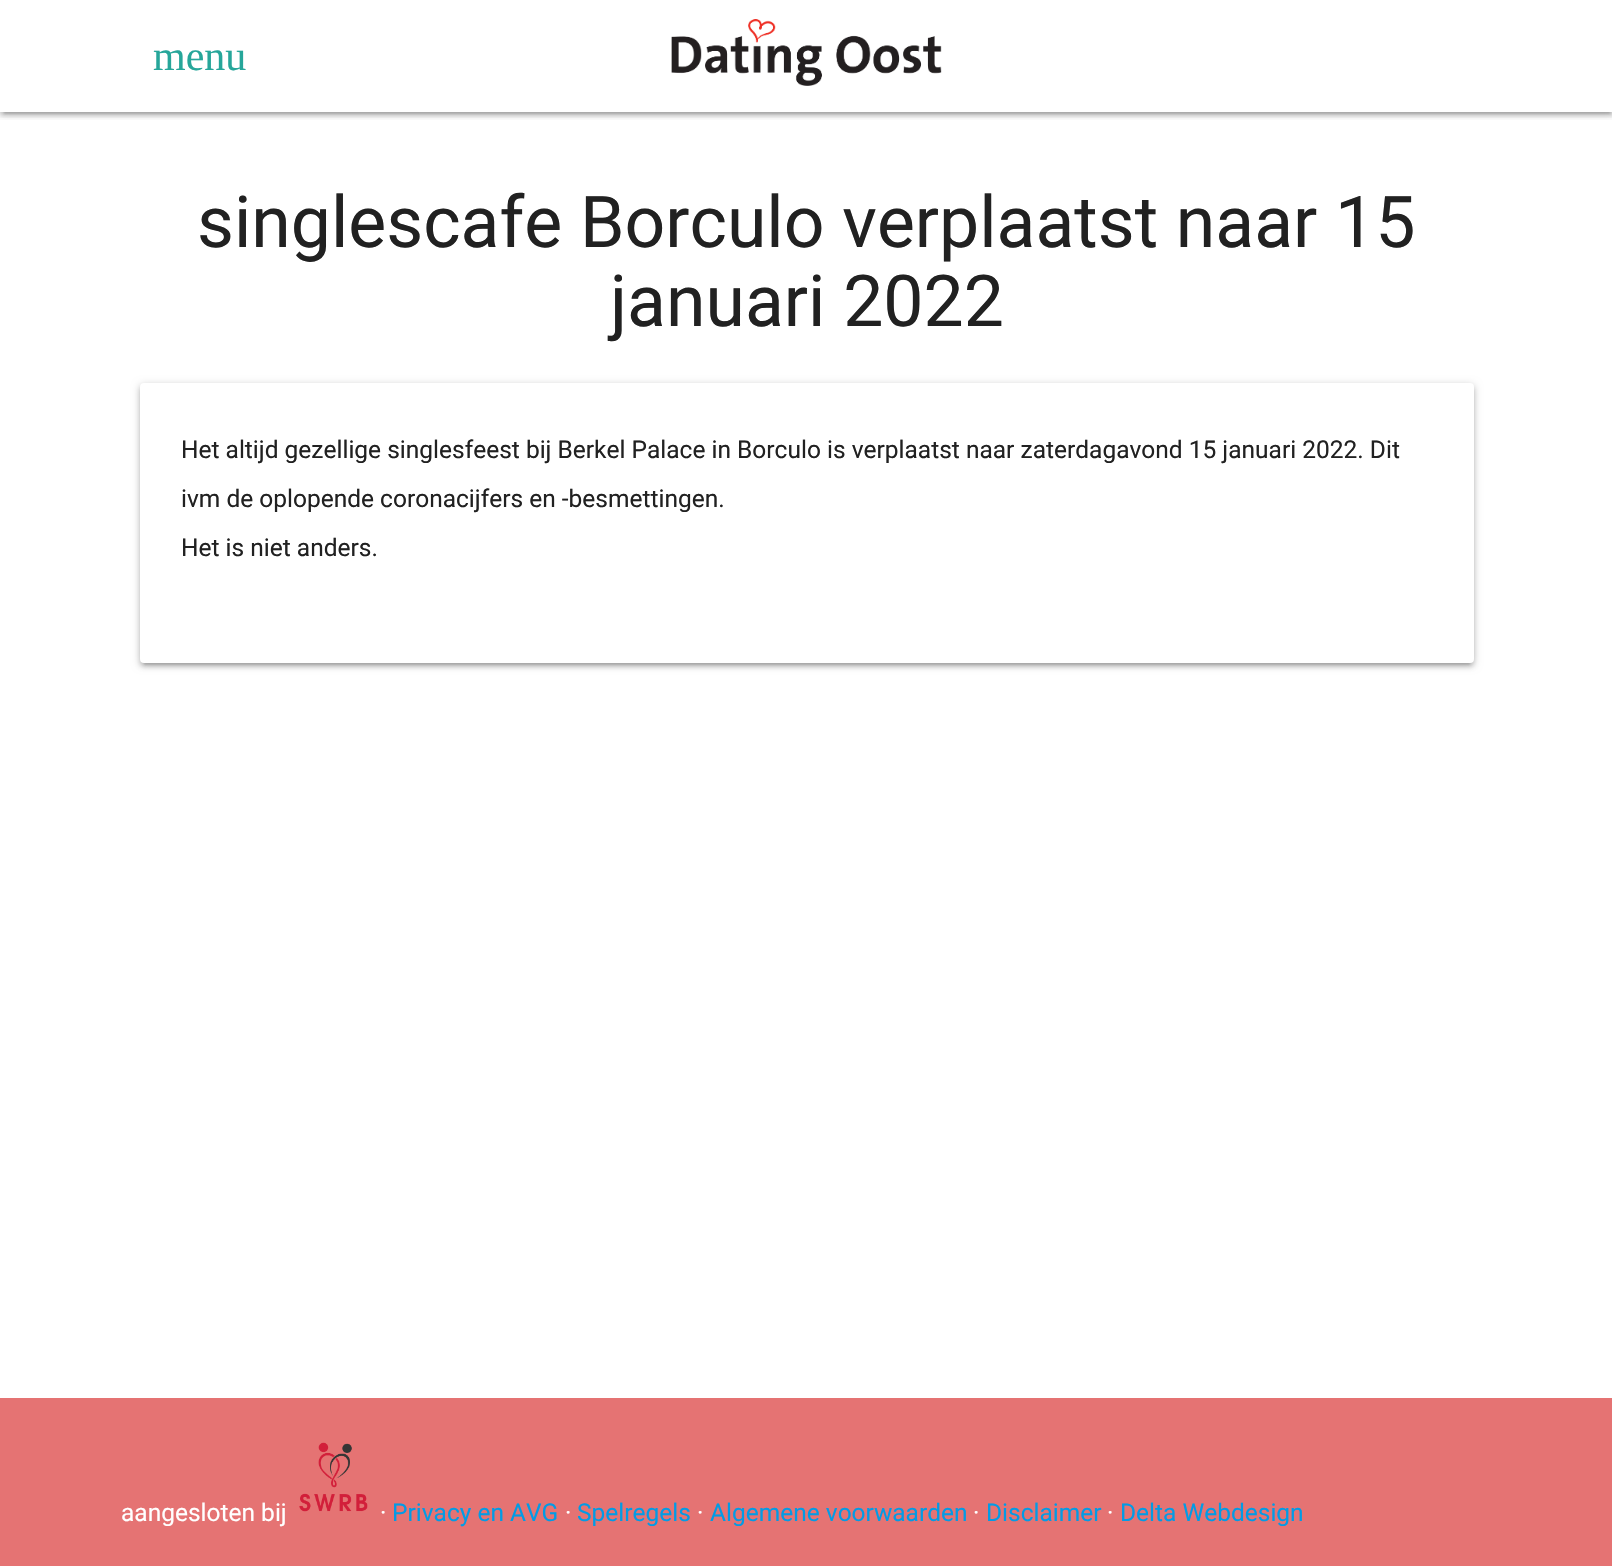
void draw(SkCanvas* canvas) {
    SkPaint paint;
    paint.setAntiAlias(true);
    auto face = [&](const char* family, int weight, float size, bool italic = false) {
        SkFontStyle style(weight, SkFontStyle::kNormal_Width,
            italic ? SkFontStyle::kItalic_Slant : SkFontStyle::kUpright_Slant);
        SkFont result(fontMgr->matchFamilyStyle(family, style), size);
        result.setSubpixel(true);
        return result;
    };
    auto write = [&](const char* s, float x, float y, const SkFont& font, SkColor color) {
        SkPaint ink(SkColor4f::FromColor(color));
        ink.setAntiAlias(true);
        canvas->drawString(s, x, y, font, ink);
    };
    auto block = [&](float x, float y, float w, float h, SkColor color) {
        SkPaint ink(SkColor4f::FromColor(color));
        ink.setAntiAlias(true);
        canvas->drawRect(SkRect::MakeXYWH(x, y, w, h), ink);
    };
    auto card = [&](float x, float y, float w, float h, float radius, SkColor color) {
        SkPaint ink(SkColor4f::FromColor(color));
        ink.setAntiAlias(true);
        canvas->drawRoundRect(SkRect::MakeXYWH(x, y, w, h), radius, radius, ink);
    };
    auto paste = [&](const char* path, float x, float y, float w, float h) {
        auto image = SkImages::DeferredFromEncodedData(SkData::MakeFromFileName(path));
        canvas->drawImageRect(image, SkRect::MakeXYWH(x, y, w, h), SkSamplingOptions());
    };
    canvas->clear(SK_ColorWHITE);
    canvas->save();
    canvas->clipRect(SkRect::MakeXYWH(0, 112, 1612, 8));
    paint.setColor(SkColorSetARGB(51, 0, 0, 0));
    paint.setMaskFilter(SkMaskFilter::MakeBlur(kNormal_SkBlurStyle, 4.5f));
    canvas->drawRect(SkRect::MakeXYWH(0, 2, 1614, 112), paint);
    paint.setMaskFilter(nullptr);
    canvas->restore();
    canvas->save();
    canvas->clipRect(SkRect::MakeXYWH(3, 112, 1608, 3));
    paint.setColor(SkColorSetARGB(31, 0, 0, 0));
    paint.setMaskFilter(SkMaskFilter::MakeBlur(kNormal_SkBlurStyle, 1));
    canvas->drawRect(SkRect::MakeXYWH(4, 9, 1606, 105), paint);
    paint.setMaskFilter(nullptr);
    canvas->restore();
    canvas->save();
    canvas->clipRect(SkRect::MakeXYWH(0, 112, 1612, 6));
    paint.setColor(SkColorSetARGB(36, 0, 0, 0));
    paint.setMaskFilter(SkMaskFilter::MakeBlur(kNormal_SkBlurStyle, 2));
    canvas->drawRect(SkRect::MakeXYWH(0, 4, 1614, 112), paint);
    paint.setMaskFilter(nullptr);
    canvas->restore();
    auto kFont1 = face("Liberation Serif", 400, 42);
    write("menu", 153, 70, kFont1, SkColorSetRGB(38, 166, 154));
    paste("pic1.png", 671, 19, 271, 67);
    auto kFont2 = face("Roboto", 400, 71.5f);
    write("singlescafe Borculo verplaatst naar 15", 197, 247, kFont2, SkColorSetRGB(33, 33, 33));
    write("januari 2022", 610, 326, kFont2, SkColorSetRGB(33, 33, 33));
    paint.setColor(SkColorSetARGB(51, 0, 0, 0));
    paint.setMaskFilter(SkMaskFilter::MakeBlur(kNormal_SkBlurStyle, 4.5f));
    canvas->drawRoundRect(SkRect::MakeXYWH(140, 385, 1334, 280), 4, 4, paint);
    paint.setMaskFilter(nullptr);
    paint.setColor(SkColorSetARGB(31, 0, 0, 0));
    paint.setMaskFilter(SkMaskFilter::MakeBlur(kNormal_SkBlurStyle, 1));
    canvas->drawRect(SkRect::MakeXYWH(144, 392, 1326, 273), paint);
    paint.setMaskFilter(nullptr);
    paint.setColor(SkColorSetARGB(36, 0, 0, 0));
    paint.setMaskFilter(SkMaskFilter::MakeBlur(kNormal_SkBlurStyle, 2));
    canvas->drawRoundRect(SkRect::MakeXYWH(140, 387, 1334, 280), 4, 4, paint);
    paint.setMaskFilter(nullptr);
    card(140, 383, 1334, 280, 4, SK_ColorWHITE);
    auto kFont3 = face("Roboto", 400, 24.5f);
    write("Het altijd gezellige singlesfeest bij Berkel Palace in Borculo is verplaatst naar zaterdagavond 15 januari 2022. Dit", 181, 458, kFont3, SkColorSetRGB(33, 33, 33));
    write("ivm de oplopende coronacijfers en -besmettingen.", 181, 507, kFont3, SkColorSetRGB(33, 33, 33));
    write("Het is niet anders.", 181, 556, kFont3, SkColorSetRGB(33, 33, 33));
    block(0, 1398, 1612, 168, SkColorSetRGB(229, 115, 115));
    paste("pic2.png", 299, 1442, 69, 70);
    write("aangesloten bij", 121, 1521, kFont3, SK_ColorWHITE);
    write("·", 380, 1521, kFont3, SK_ColorWHITE);
    write("Privacy en AVG", 392, 1521, kFont3, SkColorSetRGB(3, 155, 229));
    write("·", 565, 1521, kFont3, SK_ColorWHITE);
    write("Spelregels", 577, 1521, kFont3, SkColorSetRGB(3, 155, 229));
    write("·", 697, 1521, kFont3, SK_ColorWHITE);
    write("Algemene voorwaarden", 710, 1521, kFont3, SkColorSetRGB(3, 155, 229));
    write("·", 973, 1521, kFont3, SK_ColorWHITE);
    write("Disclaimer", 986, 1521, kFont3, SkColorSetRGB(3, 155, 229));
    write("·", 1107, 1521, kFont3, SK_ColorWHITE);
    write("Delta Webdesign", 1120, 1521, kFont3, SkColorSetRGB(3, 155, 229));
}
